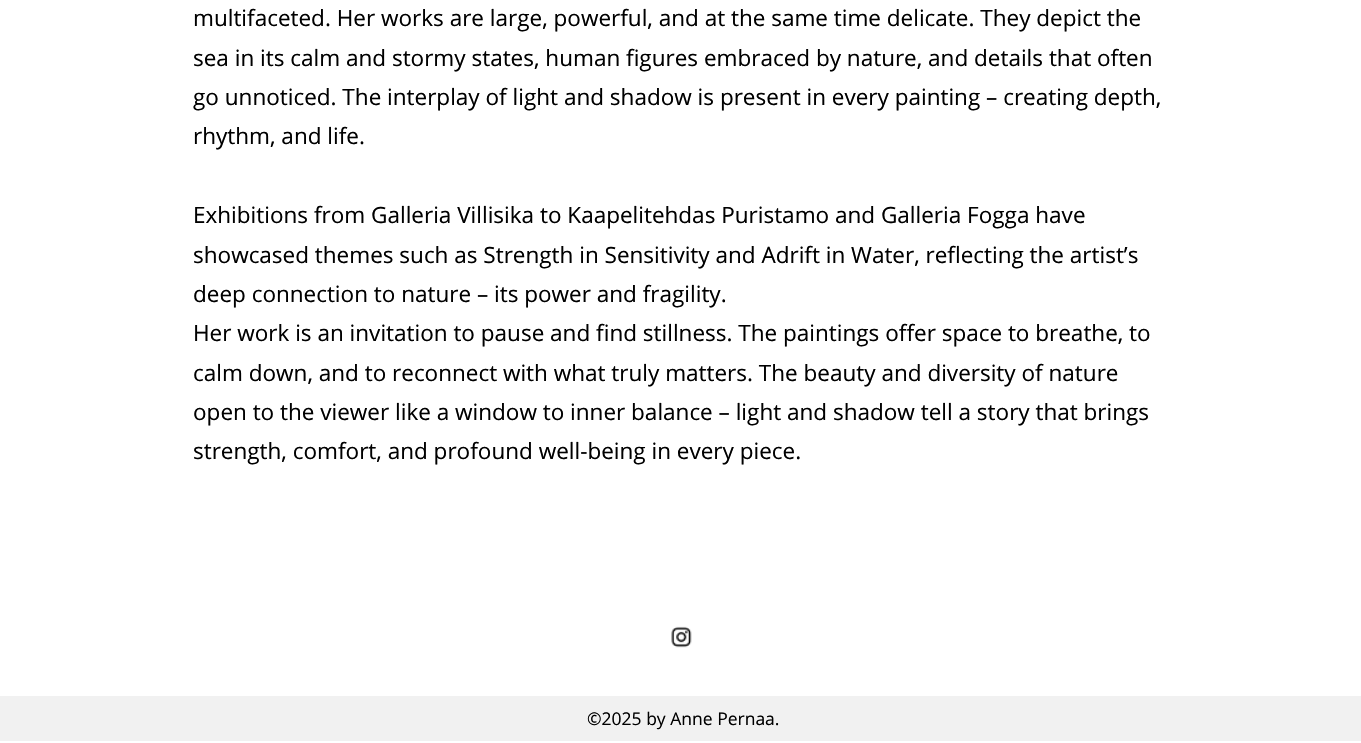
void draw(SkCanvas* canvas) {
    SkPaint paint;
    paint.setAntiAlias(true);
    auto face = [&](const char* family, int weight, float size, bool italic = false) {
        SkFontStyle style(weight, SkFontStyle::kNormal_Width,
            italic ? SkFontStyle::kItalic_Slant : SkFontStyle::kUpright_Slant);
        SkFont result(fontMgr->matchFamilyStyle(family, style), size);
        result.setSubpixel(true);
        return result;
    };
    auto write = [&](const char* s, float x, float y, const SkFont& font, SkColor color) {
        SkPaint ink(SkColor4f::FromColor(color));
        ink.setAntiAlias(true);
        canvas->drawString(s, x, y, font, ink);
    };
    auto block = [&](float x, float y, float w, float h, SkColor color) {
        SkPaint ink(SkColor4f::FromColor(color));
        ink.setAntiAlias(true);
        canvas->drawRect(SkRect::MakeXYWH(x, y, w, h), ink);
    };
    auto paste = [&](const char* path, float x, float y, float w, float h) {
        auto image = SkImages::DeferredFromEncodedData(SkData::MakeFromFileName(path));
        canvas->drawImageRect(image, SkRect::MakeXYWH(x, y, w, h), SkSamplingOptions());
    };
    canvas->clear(SK_ColorWHITE);
    auto kFont1 = face("Open Sans", 400, 22.5f);
    write("multifaceted. Her works are large, powerful, and at the same time delicate. They depict the", 193, 26, kFont1, SK_ColorBLACK);
    write("sea in its calm and stormy states, human figures embraced by nature, and details that often", 193, 66, kFont1, SK_ColorBLACK);
    write("go unnoticed. The interplay of light and shadow is present in every painting – creating depth,", 193, 105, kFont1, SK_ColorBLACK);
    write("rhythm, and life.", 193, 144, kFont1, SK_ColorBLACK);
    write("Exhibitions from Galleria Villisika to Kaapelitehdas Puristamo and Galleria Fogga have", 193, 223, kFont1, SK_ColorBLACK);
    write("showcased themes such as Strength in Sensitivity and Adrift in Water, reflecting the artist’s", 193, 263, kFont1, SK_ColorBLACK);
    write("deep connection to nature – its power and fragility.", 193, 302, kFont1, SK_ColorBLACK);
    write("Her work is an invitation to pause and find stillness. The paintings offer space to breathe, to", 193, 341, kFont1, SK_ColorBLACK);
    write("calm down, and to reconnect with what truly matters. The beauty and diversity of nature", 193, 381, kFont1, SK_ColorBLACK);
    write("open to the viewer like a window to inner balance – light and shadow tell a story that brings", 193, 420, kFont1, SK_ColorBLACK);
    write("strength, comfort, and profound well-being in every piece.", 193, 459, kFont1, SK_ColorBLACK);
    paste("pic1.png", 671, 626, 21, 22);
    block(0, 696, 1361, 45, SkColorSetRGB(241, 241, 241));
    auto kFont2 = face("Open Sans", 400, 17.5f);
    write("©2025 by Anne Pernaa.", 587, 725, kFont2, SK_ColorBLACK);
}
